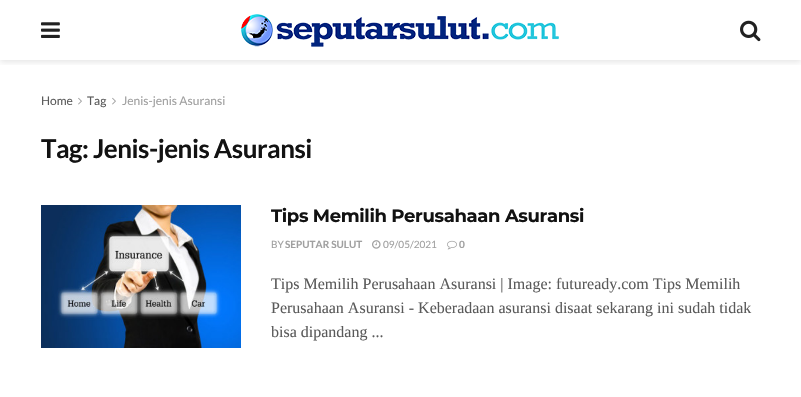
void draw(SkCanvas* canvas) {
    SkPaint paint;
    paint.setAntiAlias(true);
    auto face = [&](const char* family, int weight, float size, bool italic = false) {
        SkFontStyle style(weight, SkFontStyle::kNormal_Width,
            italic ? SkFontStyle::kItalic_Slant : SkFontStyle::kUpright_Slant);
        SkFont result(fontMgr->matchFamilyStyle(family, style), size);
        result.setSubpixel(true);
        return result;
    };
    auto write = [&](const char* s, float x, float y, const SkFont& font, SkColor color) {
        SkPaint ink(SkColor4f::FromColor(color));
        ink.setAntiAlias(true);
        canvas->drawString(s, x, y, font, ink);
    };
    auto writeSpaced = [&](const char* s, float x, float y, const SkFont& font, const SkPaint& ink, float letter, float word) {
        std::vector<SkGlyphID> glyphs(font.countText(s, strlen(s), SkTextEncoding::kUTF8));
        std::vector<float> xs(glyphs.size());
        font.textToGlyphs(s, strlen(s), SkTextEncoding::kUTF8, glyphs);
        font.getXPos(glyphs, xs, x);
        float extra = 0;
        for (size_t i = 0; i < glyphs.size(); i++) {
            xs[i] += extra;
            extra += letter + word * (glyphs[i] == font.unicharToGlyph(' '));
        }
        canvas->drawTextBlob(SkTextBlob::MakeFromPosHGlyphs(glyphs, xs, y, font), 0, 0, ink);
    };
    auto paste = [&](const char* path, float x, float y, float w, float h) {
        auto image = SkImages::DeferredFromEncodedData(SkData::MakeFromFileName(path));
        canvas->drawImageRect(image, SkRect::MakeXYWH(x, y, w, h), SkSamplingOptions());
    };
    canvas->clear(SK_ColorWHITE);
    canvas->save();
    canvas->clipRect(SkRect::MakeXYWH(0, 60, 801, 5));
    paint.setColor(SkColorSetARGB(26, 0, 0, 0));
    paint.setMaskFilter(SkMaskFilter::MakeBlur(kNormal_SkBlurStyle, 3));
    canvas->drawRect(SkRect::MakeXYWH(0, 2, 801, 60), paint);
    paint.setMaskFilter(nullptr);
    canvas->restore();
    paste("pic1.png", 41, 22, 19, 16);
    paste("pic2.png", 241, 14, 318, 33);
    paste("pic3.png", 740, 20, 21, 22);
    auto kFont1 = face("Lato", 400, 12);
    write("Home", 41, 105, kFont1, SkColorSetRGB(90, 90, 90));
    paste("pic4.png", 78, 97, 4, 8);
    write("Tag", 87, 105, kFont1, SkColorSetRGB(90, 90, 90));
    paste("pic4.png", 112, 97, 4, 8);
    write("Jenis-jenis Asuransi", 122, 105, kFont1, SkColorSetRGB(160, 160, 160));
    auto kFont2 = face("Lato", 700, 26);
    paint.setColor(SkColorSetRGB(18, 18, 18));
    writeSpaced("Tag: Jenis-jenis Asuransi", 41, 158, kFont2, paint, -0.5f, 0);
    paste("pic5.png", 41, 205, 200, 143);
    canvas->save();
    canvas->clipRect(SkRect::MakeXYWH(271, 205, 490, 139));
    auto kFont3 = face("Montserrat", 700, 18);
    writeSpaced("Tips Memilih Perusahaan Asuransi", 271, 222, kFont3, paint, -0.35f, 0);
    canvas->restore();
    auto kFont4 = face("Lato", 400, 10);
    write("BY", 271, 248, kFont4, SkColorSetRGB(160, 160, 160));
    auto kFont5 = face("Lato", 700, 10);
    write("SEPUTAR SULUT", 285, 248, kFont5, SkColorSetRGB(160, 160, 160));
    paste("pic6.png", 372, 240, 9, 9);
    write("09/05/2021", 383, 248, kFont4, SkColorSetRGB(160, 160, 160));
    paste("pic7.png", 447, 240, 10, 10);
    write("0", 459, 248, kFont5, SkColorSetRGB(160, 160, 160));
    canvas->save();
    canvas->clipRect(SkRect::MakeXYWH(271, 205, 490, 139));
    auto kFont6 = face("Liberation Serif", 400, 16);
    write("Tips Memilih Perusahaan Asuransi | Image: futuready.com Tips Memilih", 271, 289, kFont6, SkColorSetRGB(90, 90, 90));
    canvas->restore();
    write("Perusahaan Asuransi - Keberadaan asuransi disaat sekarang ini sudah tidak", 271, 313, kFont6, SkColorSetRGB(90, 90, 90));
    write("bisa dipandang ...", 271, 337, kFont6, SkColorSetRGB(90, 90, 90));
}
